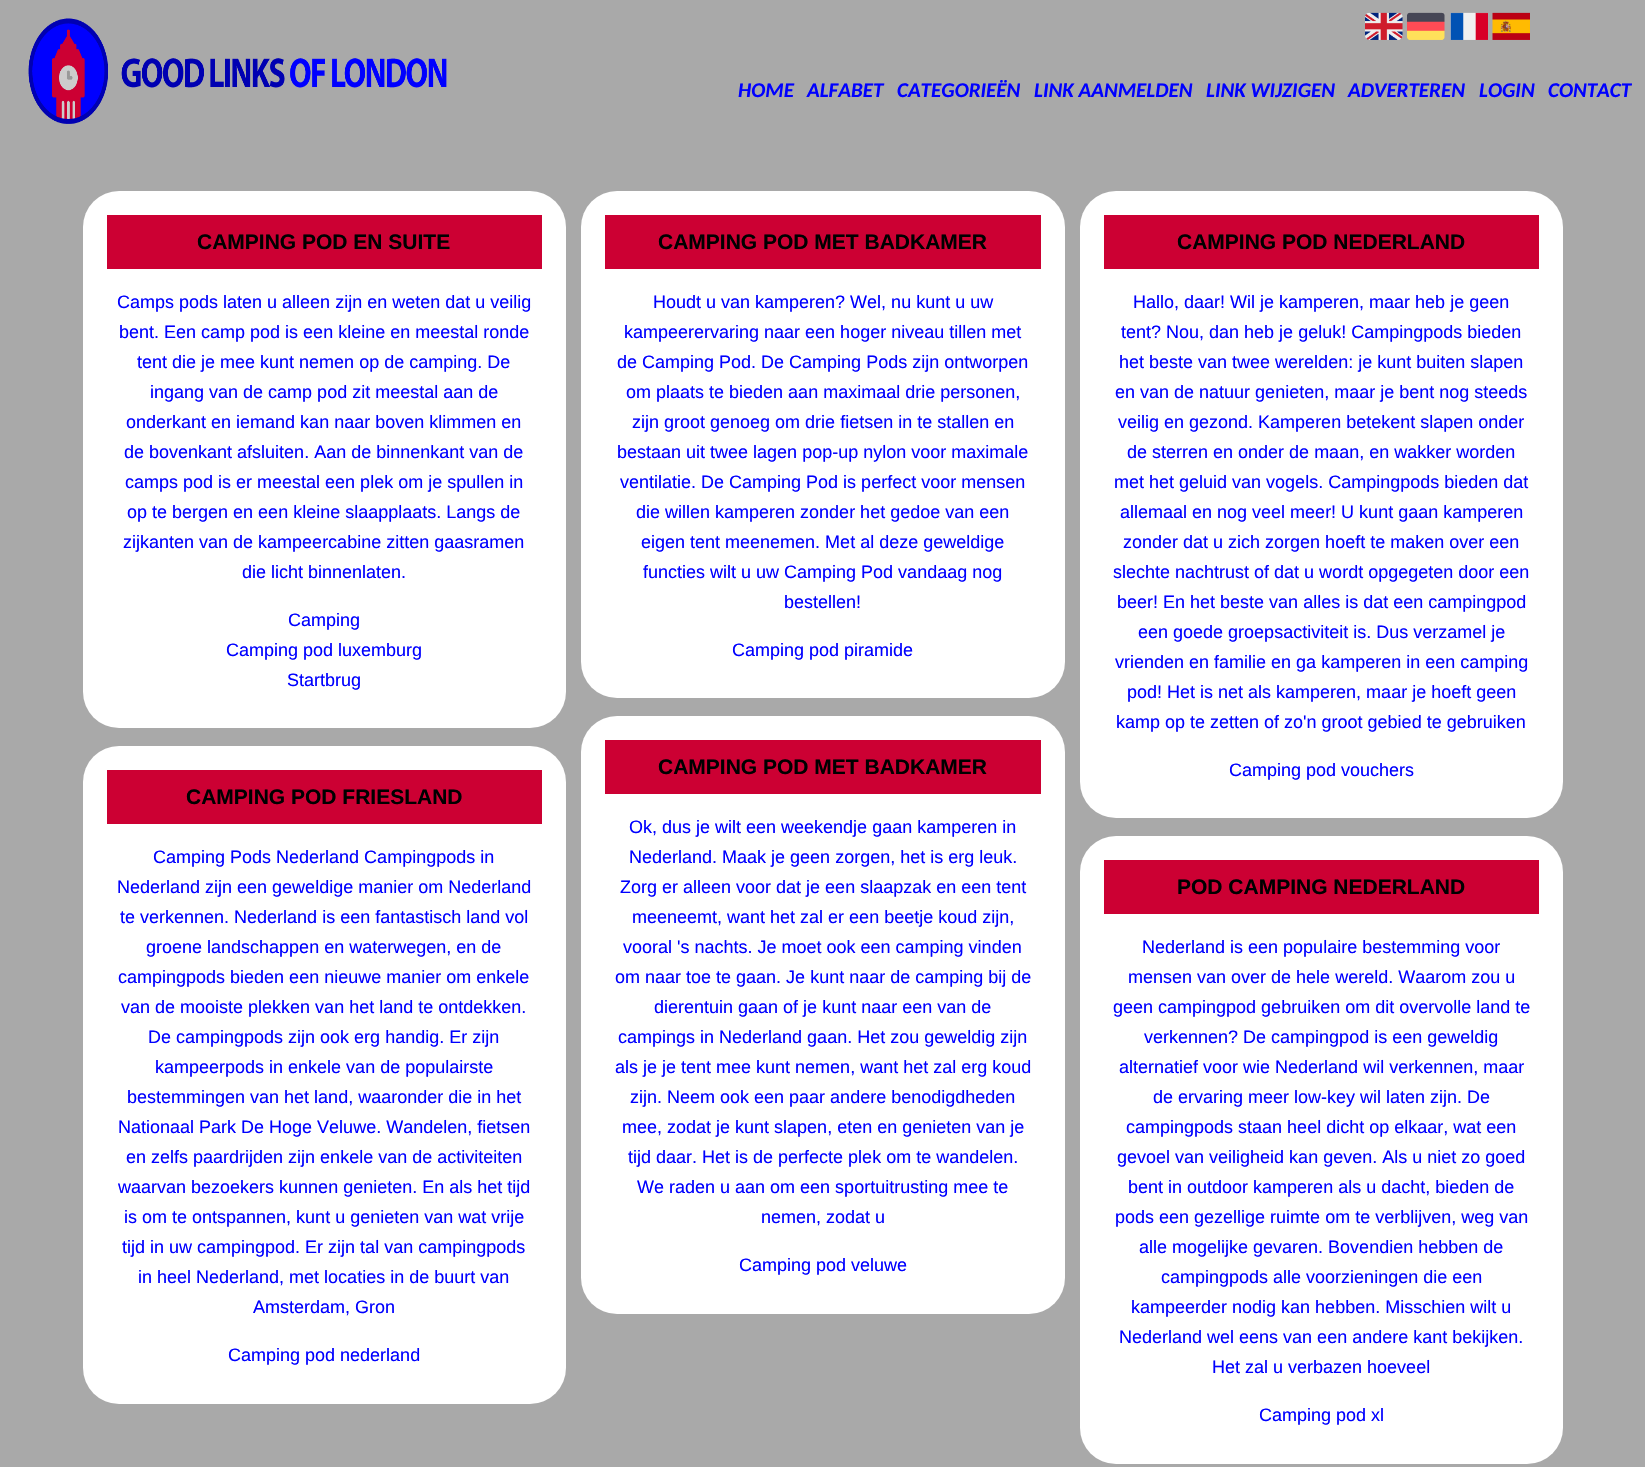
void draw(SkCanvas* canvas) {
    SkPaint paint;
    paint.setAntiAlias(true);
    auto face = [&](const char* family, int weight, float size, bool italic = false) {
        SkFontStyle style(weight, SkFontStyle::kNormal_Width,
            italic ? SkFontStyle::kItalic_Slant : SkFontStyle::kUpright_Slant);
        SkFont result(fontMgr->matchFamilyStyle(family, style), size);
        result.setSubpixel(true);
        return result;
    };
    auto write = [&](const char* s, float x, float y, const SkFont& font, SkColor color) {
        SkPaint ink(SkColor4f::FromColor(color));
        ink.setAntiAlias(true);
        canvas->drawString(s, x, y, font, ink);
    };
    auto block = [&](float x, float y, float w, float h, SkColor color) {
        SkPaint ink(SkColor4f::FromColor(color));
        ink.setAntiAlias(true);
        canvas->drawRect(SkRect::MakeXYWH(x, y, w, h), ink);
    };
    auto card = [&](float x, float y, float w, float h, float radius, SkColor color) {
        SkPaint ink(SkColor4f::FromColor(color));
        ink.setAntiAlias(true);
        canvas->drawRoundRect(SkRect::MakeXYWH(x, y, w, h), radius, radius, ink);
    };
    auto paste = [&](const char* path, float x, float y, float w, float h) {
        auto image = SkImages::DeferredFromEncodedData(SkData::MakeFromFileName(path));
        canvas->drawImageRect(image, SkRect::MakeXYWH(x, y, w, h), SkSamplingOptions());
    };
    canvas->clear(SkColorSetRGB(169, 169, 169));
    paste("pic1.png", 28, 18, 419, 106);
    paste("pic2.png", 1365, 12, 38, 28);
    paste("pic3.png", 1407, 12, 38, 28);
    paste("pic4.png", 1450, 12, 38, 28);
    paste("pic5.png", 1492, 12, 38, 28);
    auto kFont1 = face("Carlito", 700, 21, true);
    write("HOME", 738, 97, kFont1, SkColorSetRGB(0, 0, 255));
    write("ALFABET", 807, 97, kFont1, SkColorSetRGB(0, 0, 255));
    write("CATEGORIEËN", 897, 97, kFont1, SkColorSetRGB(0, 0, 255));
    write("LINK AANMELDEN", 1034, 97, kFont1, SkColorSetRGB(0, 0, 255));
    write("LINK WIJZIGEN", 1206, 97, kFont1, SkColorSetRGB(0, 0, 255));
    write("ADVERTEREN", 1348, 97, kFont1, SkColorSetRGB(0, 0, 255));
    write("LOGIN", 1479, 97, kFont1, SkColorSetRGB(0, 0, 255));
    write("CONTACT", 1548, 97, kFont1, SkColorSetRGB(0, 0, 255));
    card(83, 191, 483, 537, 36, SK_ColorWHITE);
    block(107, 215, 435, 54, SkColorSetRGB(204, 0, 51));
    auto kFont2 = face("Liberation Sans", 700, 21);
    write("CAMPING POD EN SUITE", 197, 249, kFont2, SK_ColorBLACK);
    auto kFont3 = face("Liberation Sans", 400, 18);
    write("Camps pods laten u alleen zijn en weten dat u veilig", 117, 308, kFont3, SkColorSetRGB(0, 0, 255));
    write("bent. Een camp pod is een kleine en meestal ronde", 119, 338, kFont3, SkColorSetRGB(0, 0, 255));
    write("tent die je mee kunt nemen op de camping. De", 137, 368, kFont3, SkColorSetRGB(0, 0, 255));
    write("ingang van de camp pod zit meestal aan de", 150, 398, kFont3, SkColorSetRGB(0, 0, 255));
    write("onderkant en iemand kan naar boven klimmen en", 126, 428, kFont3, SkColorSetRGB(0, 0, 255));
    write("de bovenkant afsluiten. Aan de binnenkant van de", 124, 458, kFont3, SkColorSetRGB(0, 0, 255));
    write("camps pod is er meestal een plek om je spullen in", 125, 488, kFont3, SkColorSetRGB(0, 0, 255));
    write("op te bergen en een kleine slaapplaats. Langs de", 127, 518, kFont3, SkColorSetRGB(0, 0, 255));
    write("zijkanten van de kampeercabine zitten gaasramen", 123, 548, kFont3, SkColorSetRGB(0, 0, 255));
    write("die licht binnenlaten.", 242, 578, kFont3, SkColorSetRGB(0, 0, 255));
    write("Camping", 288, 626, kFont3, SkColorSetRGB(0, 0, 255));
    write("Camping pod luxemburg", 226, 656, kFont3, SkColorSetRGB(0, 0, 255));
    write("Startbrug", 287, 686, kFont3, SkColorSetRGB(0, 0, 255));
    card(581, 191, 484, 507, 36, SK_ColorWHITE);
    block(605, 215, 436, 54, SkColorSetRGB(204, 0, 51));
    write("CAMPING POD MET BADKAMER", 658, 249, kFont2, SK_ColorBLACK);
    write("Houdt u van kamperen? Wel, nu kunt u uw", 653, 308, kFont3, SkColorSetRGB(0, 0, 255));
    write("kampeerervaring naar een hoger niveau tillen met", 624, 338, kFont3, SkColorSetRGB(0, 0, 255));
    write("de Camping Pod. De Camping Pods zijn ontworpen", 617, 368, kFont3, SkColorSetRGB(0, 0, 255));
    write("om plaats te bieden aan maximaal drie personen,", 626, 398, kFont3, SkColorSetRGB(0, 0, 255));
    write("zijn groot genoeg om drie fietsen in te stallen en", 632, 428, kFont3, SkColorSetRGB(0, 0, 255));
    write("bestaan uit twee lagen pop-up nylon voor maximale", 617, 458, kFont3, SkColorSetRGB(0, 0, 255));
    write("ventilatie. De Camping Pod is perfect voor mensen", 620, 488, kFont3, SkColorSetRGB(0, 0, 255));
    write("die willen kamperen zonder het gedoe van een", 636, 518, kFont3, SkColorSetRGB(0, 0, 255));
    write("eigen tent meenemen. Met al deze geweldige", 641, 548, kFont3, SkColorSetRGB(0, 0, 255));
    write("functies wilt u uw Camping Pod vandaag nog", 643, 578, kFont3, SkColorSetRGB(0, 0, 255));
    write("bestellen!", 784, 608, kFont3, SkColorSetRGB(0, 0, 255));
    write("Camping pod piramide", 732, 656, kFont3, SkColorSetRGB(0, 0, 255));
    card(1080, 191, 483, 627, 36, SK_ColorWHITE);
    block(1104, 215, 435, 54, SkColorSetRGB(204, 0, 51));
    write("CAMPING POD NEDERLAND", 1177, 249, kFont2, SK_ColorBLACK);
    write("Hallo, daar! Wil je kamperen, maar heb je geen", 1133, 308, kFont3, SkColorSetRGB(0, 0, 255));
    write("tent? Nou, dan heb je geluk! Campingpods bieden", 1121, 338, kFont3, SkColorSetRGB(0, 0, 255));
    write("het beste van twee werelden: je kunt buiten slapen", 1119, 368, kFont3, SkColorSetRGB(0, 0, 255));
    write("en van de natuur genieten, maar je bent nog steeds", 1115, 398, kFont3, SkColorSetRGB(0, 0, 255));
    write("veilig en gezond. Kamperen betekent slapen onder", 1118, 428, kFont3, SkColorSetRGB(0, 0, 255));
    write("de sterren en onder de maan, en wakker worden", 1127, 458, kFont3, SkColorSetRGB(0, 0, 255));
    write("met het geluid van vogels. Campingpods bieden dat", 1114, 488, kFont3, SkColorSetRGB(0, 0, 255));
    write("allemaal en nog veel meer! U kunt gaan kamperen", 1120, 518, kFont3, SkColorSetRGB(0, 0, 255));
    write("zonder dat u zich zorgen hoeft te maken over een", 1123, 548, kFont3, SkColorSetRGB(0, 0, 255));
    write("slechte nachtrust of dat u wordt opgegeten door een", 1113, 578, kFont3, SkColorSetRGB(0, 0, 255));
    write("beer! En het beste van alles is dat een campingpod", 1117, 608, kFont3, SkColorSetRGB(0, 0, 255));
    write("een goede groepsactiviteit is. Dus verzamel je", 1138, 638, kFont3, SkColorSetRGB(0, 0, 255));
    write("vrienden en familie en ga kamperen in een camping", 1115, 668, kFont3, SkColorSetRGB(0, 0, 255));
    write("pod! Het is net als kamperen, maar je hoeft geen", 1127, 698, kFont3, SkColorSetRGB(0, 0, 255));
    write("kamp op te zetten of zo'n groot gebied te gebruiken", 1116, 728, kFont3, SkColorSetRGB(0, 0, 255));
    write("Camping pod vouchers", 1229, 776, kFont3, SkColorSetRGB(0, 0, 255));
    card(83, 746, 483, 658, 36, SK_ColorWHITE);
    block(107, 770, 435, 54, SkColorSetRGB(204, 0, 51));
    write("CAMPING POD FRIESLAND", 186, 804, kFont2, SK_ColorBLACK);
    write("Camping Pods Nederland Campingpods in", 153, 863, kFont3, SkColorSetRGB(0, 0, 255));
    write("Nederland zijn een geweldige manier om Nederland", 117, 893, kFont3, SkColorSetRGB(0, 0, 255));
    write("te verkennen. Nederland is een fantastisch land vol", 120, 923, kFont3, SkColorSetRGB(0, 0, 255));
    write("groene landschappen en waterwegen, en de", 146, 953, kFont3, SkColorSetRGB(0, 0, 255));
    write("campingpods bieden een nieuwe manier om enkele", 118, 983, kFont3, SkColorSetRGB(0, 0, 255));
    write("van de mooiste plekken van het land te ontdekken.", 121, 1013, kFont3, SkColorSetRGB(0, 0, 255));
    write("De campingpods zijn ook erg handig. Er zijn", 148, 1043, kFont3, SkColorSetRGB(0, 0, 255));
    write("kampeerpods in enkele van de populairste", 155, 1073, kFont3, SkColorSetRGB(0, 0, 255));
    write("bestemmingen van het land, waaronder die in het", 127, 1103, kFont3, SkColorSetRGB(0, 0, 255));
    write("Nationaal Park De Hoge Veluwe. Wandelen, fietsen", 118, 1133, kFont3, SkColorSetRGB(0, 0, 255));
    write("en zelfs paardrijden zijn enkele van de activiteiten", 126, 1163, kFont3, SkColorSetRGB(0, 0, 255));
    write("waarvan bezoekers kunnen genieten. En als het tijd", 118, 1193, kFont3, SkColorSetRGB(0, 0, 255));
    write("is om te ontspannen, kunt u genieten van wat vrije", 124, 1223, kFont3, SkColorSetRGB(0, 0, 255));
    write("tijd in uw campingpod. Er zijn tal van campingpods", 122, 1253, kFont3, SkColorSetRGB(0, 0, 255));
    write("in heel Nederland, met locaties in de buurt van", 138, 1283, kFont3, SkColorSetRGB(0, 0, 255));
    write("Amsterdam, Gron", 253, 1313, kFont3, SkColorSetRGB(0, 0, 255));
    write("Camping pod nederland", 228, 1361, kFont3, SkColorSetRGB(0, 0, 255));
    card(581, 716, 484, 598, 36, SK_ColorWHITE);
    block(605, 740, 436, 54, SkColorSetRGB(204, 0, 51));
    write("CAMPING POD MET BADKAMER", 658, 774, kFont2, SK_ColorBLACK);
    write("Ok, dus je wilt een weekendje gaan kamperen in", 629, 833, kFont3, SkColorSetRGB(0, 0, 255));
    write("Nederland. Maak je geen zorgen, het is erg leuk.", 629, 863, kFont3, SkColorSetRGB(0, 0, 255));
    write("Zorg er alleen voor dat je een slaapzak en een tent", 620, 893, kFont3, SkColorSetRGB(0, 0, 255));
    write("meeneemt, want het zal er een beetje koud zijn,", 632, 923, kFont3, SkColorSetRGB(0, 0, 255));
    write("vooral 's nachts. Je moet ook een camping vinden", 623, 953, kFont3, SkColorSetRGB(0, 0, 255));
    write("om naar toe te gaan. Je kunt naar de camping bij de", 615, 983, kFont3, SkColorSetRGB(0, 0, 255));
    write("dierentuin gaan of je kunt naar een van de", 654, 1013, kFont3, SkColorSetRGB(0, 0, 255));
    write("campings in Nederland gaan. Het zou geweldig zijn", 618, 1043, kFont3, SkColorSetRGB(0, 0, 255));
    write("als je je tent mee kunt nemen, want het zal erg koud", 615, 1073, kFont3, SkColorSetRGB(0, 0, 255));
    write("zijn. Neem ook een paar andere benodigdheden", 630, 1103, kFont3, SkColorSetRGB(0, 0, 255));
    write("mee, zodat je kunt slapen, eten en genieten van je", 622, 1133, kFont3, SkColorSetRGB(0, 0, 255));
    write("tijd daar. Het is de perfecte plek om te wandelen.", 628, 1163, kFont3, SkColorSetRGB(0, 0, 255));
    write("We raden u aan om een sportuitrusting mee te", 637, 1193, kFont3, SkColorSetRGB(0, 0, 255));
    write("nemen, zodat u", 761, 1223, kFont3, SkColorSetRGB(0, 0, 255));
    write("Camping pod veluwe", 739, 1271, kFont3, SkColorSetRGB(0, 0, 255));
    card(1080, 836, 483, 628, 36, SK_ColorWHITE);
    block(1104, 860, 435, 54, SkColorSetRGB(204, 0, 51));
    write("POD CAMPING NEDERLAND", 1177, 894, kFont2, SK_ColorBLACK);
    write("Nederland is een populaire bestemming voor", 1142, 953, kFont3, SkColorSetRGB(0, 0, 255));
    write("mensen van over de hele wereld. Waarom zou u", 1128, 983, kFont3, SkColorSetRGB(0, 0, 255));
    write("geen campingpod gebruiken om dit overvolle land te", 1113, 1013, kFont3, SkColorSetRGB(0, 0, 255));
    write("verkennen? De campingpod is een geweldig", 1144, 1043, kFont3, SkColorSetRGB(0, 0, 255));
    write("alternatief voor wie Nederland wil verkennen, maar", 1119, 1073, kFont3, SkColorSetRGB(0, 0, 255));
    write("de ervaring meer low-key wil laten zijn. De", 1153, 1103, kFont3, SkColorSetRGB(0, 0, 255));
    write("campingpods staan heel dicht op elkaar, wat een", 1126, 1133, kFont3, SkColorSetRGB(0, 0, 255));
    write("gevoel van veiligheid kan geven. Als u niet zo goed", 1117, 1163, kFont3, SkColorSetRGB(0, 0, 255));
    write("bent in outdoor kamperen als u dacht, bieden de", 1128, 1193, kFont3, SkColorSetRGB(0, 0, 255));
    write("pods een gezellige ruimte om te verblijven, weg van", 1115, 1223, kFont3, SkColorSetRGB(0, 0, 255));
    write("alle mogelijke gevaren. Bovendien hebben de", 1139, 1253, kFont3, SkColorSetRGB(0, 0, 255));
    write("campingpods alle voorzieningen die een", 1161, 1283, kFont3, SkColorSetRGB(0, 0, 255));
    write("kampeerder nodig kan hebben. Misschien wilt u", 1131, 1313, kFont3, SkColorSetRGB(0, 0, 255));
    write("Nederland wel eens van een andere kant bekijken.", 1119, 1343, kFont3, SkColorSetRGB(0, 0, 255));
    write("Het zal u verbazen hoeveel", 1212, 1373, kFont3, SkColorSetRGB(0, 0, 255));
    write("Camping pod xl", 1259, 1421, kFont3, SkColorSetRGB(0, 0, 255));
}
